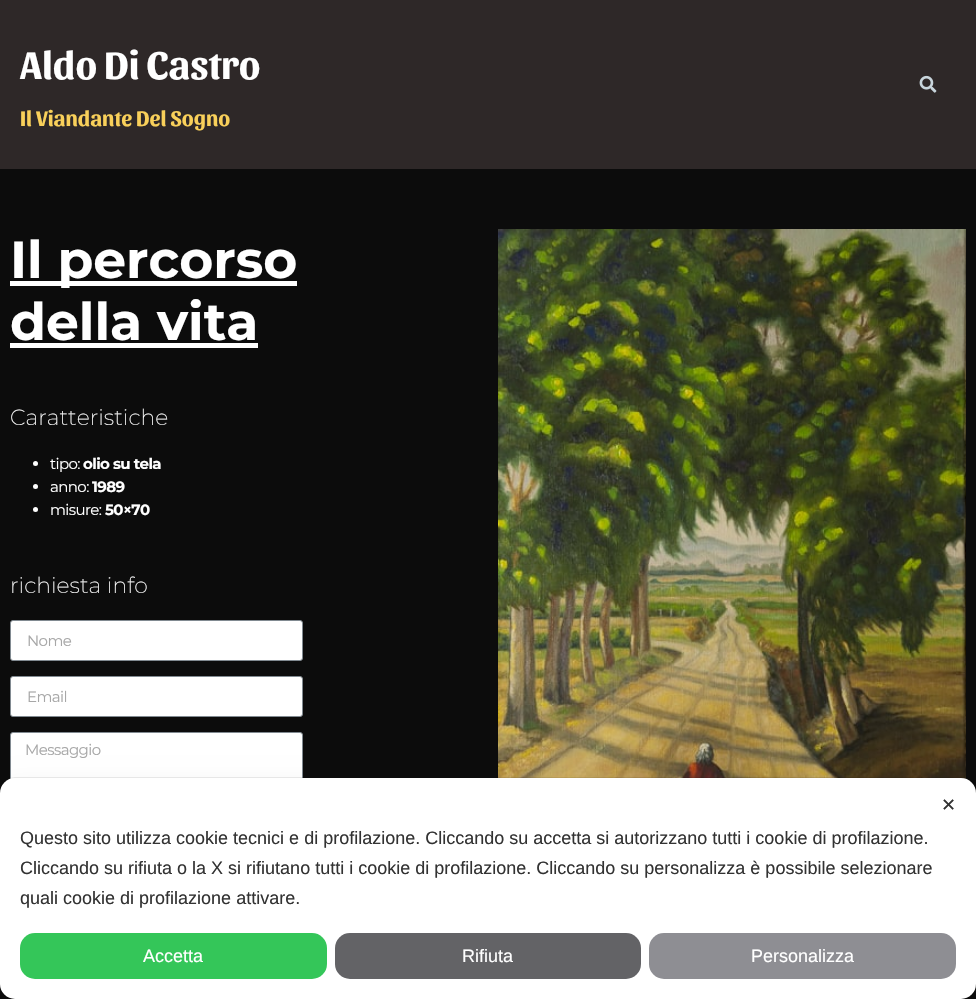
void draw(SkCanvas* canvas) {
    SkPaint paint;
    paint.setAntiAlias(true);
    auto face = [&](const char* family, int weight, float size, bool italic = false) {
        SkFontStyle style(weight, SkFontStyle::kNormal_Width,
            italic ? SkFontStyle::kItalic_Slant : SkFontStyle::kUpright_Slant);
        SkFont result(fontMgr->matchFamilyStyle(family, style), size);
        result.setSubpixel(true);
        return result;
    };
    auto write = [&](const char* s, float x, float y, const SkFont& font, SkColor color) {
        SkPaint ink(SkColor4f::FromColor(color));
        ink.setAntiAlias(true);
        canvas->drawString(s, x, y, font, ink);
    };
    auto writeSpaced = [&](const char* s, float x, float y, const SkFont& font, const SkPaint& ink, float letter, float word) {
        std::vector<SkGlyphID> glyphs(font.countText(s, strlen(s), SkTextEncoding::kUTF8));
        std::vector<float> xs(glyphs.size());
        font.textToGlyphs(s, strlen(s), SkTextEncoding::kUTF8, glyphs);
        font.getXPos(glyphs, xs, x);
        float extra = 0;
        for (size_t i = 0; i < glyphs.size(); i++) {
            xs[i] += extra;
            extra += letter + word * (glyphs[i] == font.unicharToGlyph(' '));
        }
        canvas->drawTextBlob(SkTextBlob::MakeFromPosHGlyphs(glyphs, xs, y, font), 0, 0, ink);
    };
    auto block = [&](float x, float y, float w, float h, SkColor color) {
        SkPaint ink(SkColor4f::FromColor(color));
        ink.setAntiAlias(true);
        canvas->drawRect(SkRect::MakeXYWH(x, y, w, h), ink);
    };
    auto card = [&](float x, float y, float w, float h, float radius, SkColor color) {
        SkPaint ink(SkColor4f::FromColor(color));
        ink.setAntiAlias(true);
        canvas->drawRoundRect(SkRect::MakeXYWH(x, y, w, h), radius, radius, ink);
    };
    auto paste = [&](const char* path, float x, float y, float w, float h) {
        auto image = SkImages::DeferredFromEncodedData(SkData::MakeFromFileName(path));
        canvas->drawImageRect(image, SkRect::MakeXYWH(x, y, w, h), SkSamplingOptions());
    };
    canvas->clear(SkColorSetRGB(12, 12, 12));
    block(0, 0, 976, 169, SkColorSetRGB(46, 40, 40));
    auto kFont1 = face("Sansita", 700, 40);
    write("Aldo Di Castro", 20, 79, kFont1, SK_ColorWHITE);
    auto kFont2 = face("Sansita", 700, 22);
    write("Il Viandante Del Sogno", 20, 126, kFont2, SkColorSetRGB(249, 208, 90));
    paste("pic1.png", 919, 75, 18, 18);
    block(10, 281, 287, 5, SK_ColorWHITE);
    auto kFont3 = face("Montserrat", 700, 52);
    write("Il percorso", 10, 278, kFont3, SK_ColorWHITE);
    write("della vita", 10, 340, kFont3, SK_ColorWHITE);
    block(10, 343, 248, 5, SK_ColorWHITE);
    auto kFont4 = face("Montserrat", 200, 22);
    write("Caratteristiche", 10, 425, kFont4, SK_ColorWHITE);
    paint.setColor(SK_ColorWHITE);
    canvas->drawCircle(35.5f, 463.5f, 2.5f, paint);
    auto kFont5 = face("Montserrat", 400, 15);
    writeSpaced("tipo:", 50, 469, kFont5, paint, -0.6f, 0);
    auto kFont6 = face("Montserrat", 700, 15);
    writeSpaced("olio su tela", 83, 469, kFont6, paint, -0.6f, 0);
    canvas->drawCircle(35.5f, 486.5f, 2.5f, paint);
    writeSpaced("anno:", 50, 492, kFont5, paint, -0.6f, 0);
    writeSpaced("1989", 92, 492, kFont6, paint, -0.6f, 0);
    canvas->drawCircle(35.5f, 509.5f, 2.5f, paint);
    writeSpaced("misure:", 50, 515, kFont5, paint, -0.6f, 0);
    writeSpaced("50×70", 105, 515, kFont6, paint, -0.6f, 0);
    write("richiesta info", 10, 593, kFont4, SK_ColorWHITE);
    canvas->drawRoundRect(SkRect::MakeXYWH(10.5f, 620.5f, 292, 40), 2.5f, 2.5f, paint);
    paint.setStyle(SkPaint::kStroke_Style);
    paint.setStrokeWidth(1);
    paint.setColor(SkColorSetRGB(129, 138, 145));
    canvas->drawRoundRect(SkRect::MakeXYWH(10.5f, 620.5f, 292, 40), 2.5f, 2.5f, paint);
    paint.setStyle(SkPaint::kFill_Style);
    paint.setColor(SkColorSetRGB(167, 167, 167));
    writeSpaced("Nome", 27, 646, kFont5, paint, -0.6f, 0);
    paint.setColor(SK_ColorWHITE);
    canvas->drawRoundRect(SkRect::MakeXYWH(10.5f, 676.5f, 292, 40), 2.5f, 2.5f, paint);
    paint.setStyle(SkPaint::kStroke_Style);
    paint.setColor(SkColorSetRGB(129, 138, 145));
    canvas->drawRoundRect(SkRect::MakeXYWH(10.5f, 676.5f, 292, 40), 2.5f, 2.5f, paint);
    paint.setStyle(SkPaint::kFill_Style);
    paint.setColor(SkColorSetRGB(167, 167, 167));
    writeSpaced("Email", 27, 702, kFont5, paint, -0.6f, 0);
    paint.setColor(SK_ColorWHITE);
    canvas->drawRoundRect(SkRect::MakeXYWH(10.5f, 732.5f, 292, 103), 2.5f, 2.5f, paint);
    paint.setStyle(SkPaint::kStroke_Style);
    paint.setColor(SkColorSetRGB(129, 138, 145));
    canvas->drawRoundRect(SkRect::MakeXYWH(10.5f, 732.5f, 292, 103), 2.5f, 2.5f, paint);
    paint.setStyle(SkPaint::kFill_Style);
    paint.setColor(SkColorSetRGB(167, 167, 167));
    writeSpaced("Messaggio", 25, 755, kFont5, paint, -0.6f, 0);
    paste("pic2.png", 498, 229, 468, 550);
    paint.setStyle(SkPaint::kStroke_Style);
    paint.setColor(SkColorSetARGB(20, 0, 0, 0));
    canvas->drawRoundRect(SkRect::MakeXYWH(-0.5f, 777.5f, 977, 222), 15.5f, 15.5f, paint);
    paint.setStyle(SkPaint::kFill_Style);
    paint.setColor(SkColorSetARGB(13, 0, 0, 0));
    paint.setMaskFilter(SkMaskFilter::MakeBlur(kNormal_SkBlurStyle, 12));
    canvas->drawRoundRect(SkRect::MakeXYWH(0, 784, 976, 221), 15, 15, paint);
    paint.setMaskFilter(nullptr);
    card(0, 778, 976, 221, 15, SK_ColorWHITE);
    auto kFont7 = face("DejaVu Sans", 400, 18);
    write("✕", 941, 811, kFont7, SkColorSetRGB(51, 51, 51));
    auto kFont8 = face("Liberation Sans", 400, 18);
    write("Questo sito utilizza cookie tecnici e di profilazione. Cliccando su accetta si autorizzano tutti i cookie di profilazione.", 20, 844, kFont8, SkColorSetRGB(51, 51, 51));
    write("Cliccando su rifiuta o la X si rifiutano tutti i cookie di profilazione. Cliccando su personalizza è possibile selezionare", 20, 874, kFont8, SkColorSetRGB(51, 51, 51));
    write("quali cookie di profilazione attivare.", 20, 904, kFont8, SkColorSetRGB(51, 51, 51));
    card(20, 933, 307, 46, 15, SkColorSetRGB(52, 198, 89));
    write("Accetta", 143, 962, kFont8, SK_ColorWHITE);
    card(335, 933, 306, 46, 15, SkColorSetRGB(99, 99, 102));
    write("Rifiuta", 462, 962, kFont8, SK_ColorWHITE);
    card(649, 933, 307, 46, 15, SkColorSetRGB(142, 142, 147));
    write("Personalizza", 751, 962, kFont8, SK_ColorWHITE);
}
